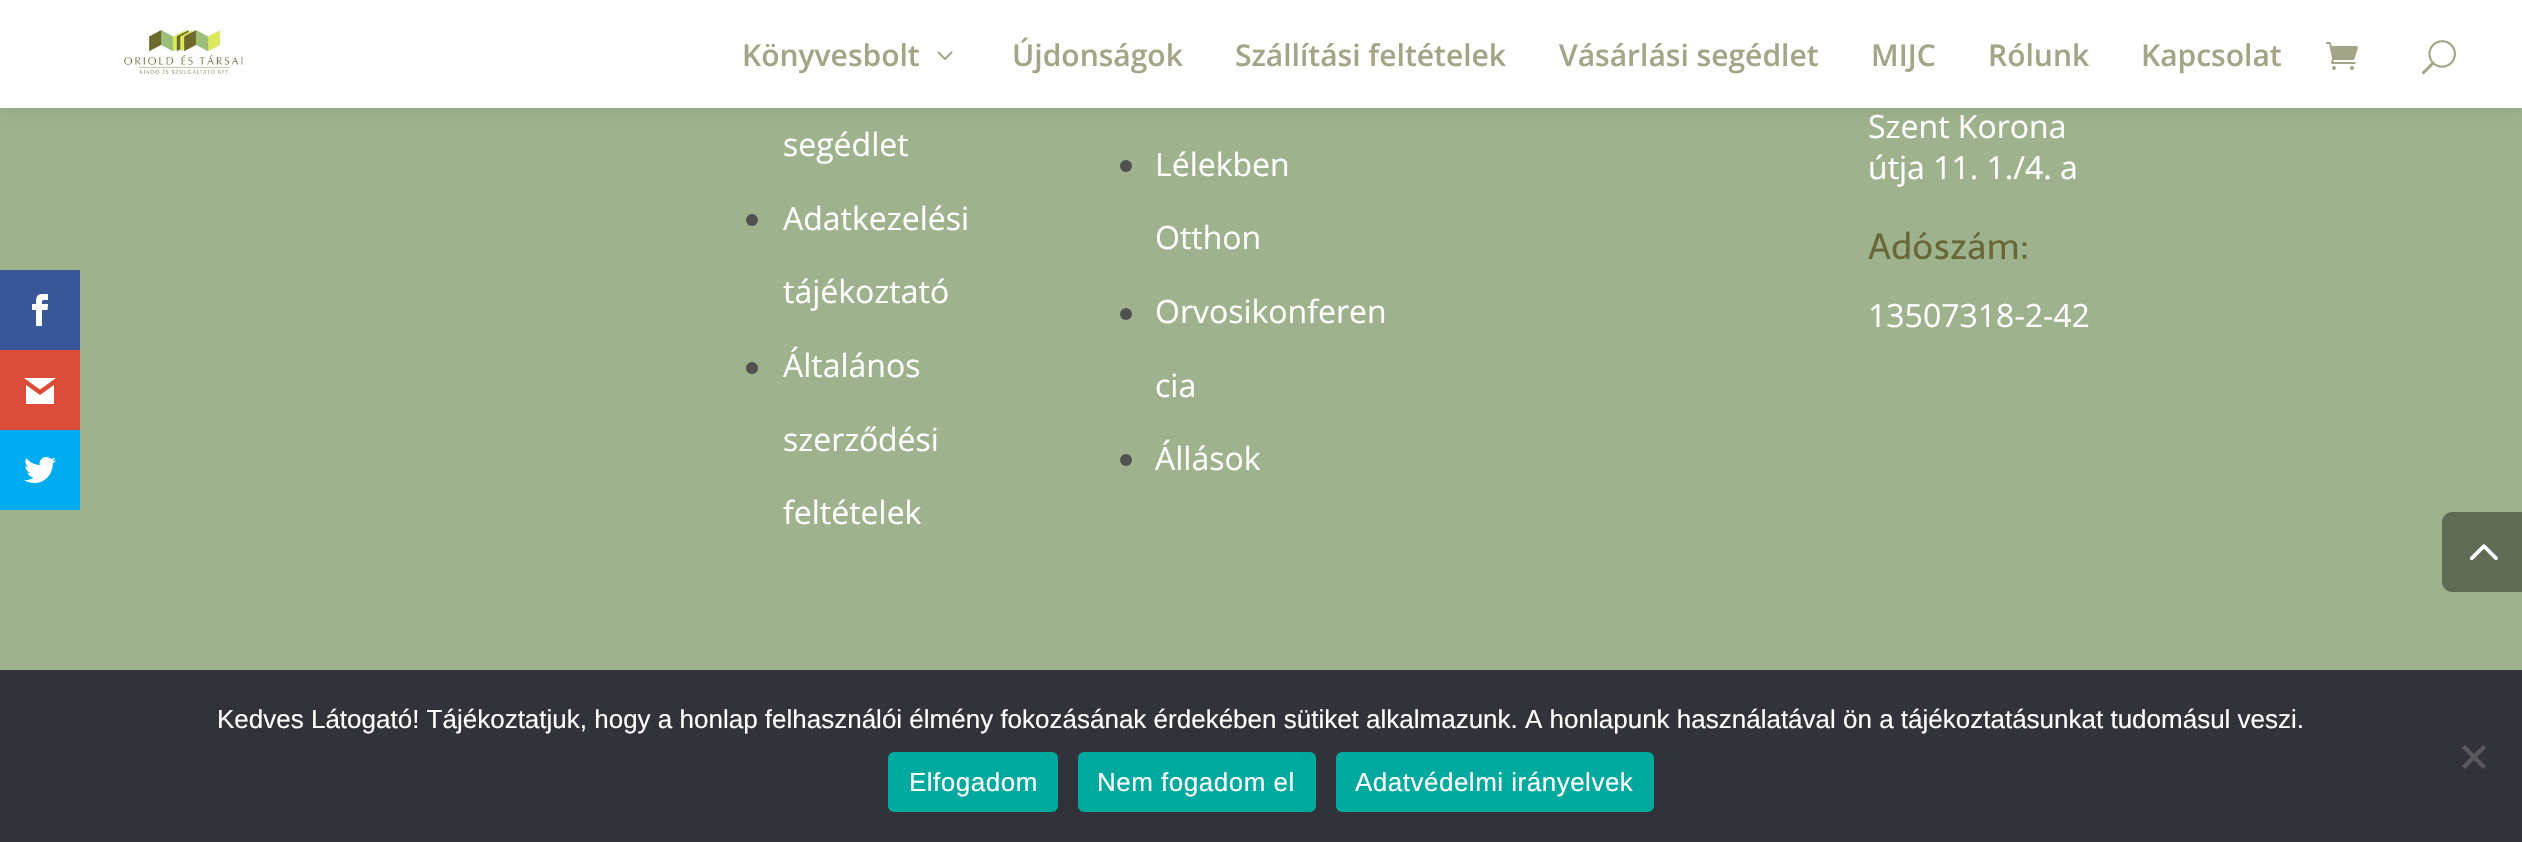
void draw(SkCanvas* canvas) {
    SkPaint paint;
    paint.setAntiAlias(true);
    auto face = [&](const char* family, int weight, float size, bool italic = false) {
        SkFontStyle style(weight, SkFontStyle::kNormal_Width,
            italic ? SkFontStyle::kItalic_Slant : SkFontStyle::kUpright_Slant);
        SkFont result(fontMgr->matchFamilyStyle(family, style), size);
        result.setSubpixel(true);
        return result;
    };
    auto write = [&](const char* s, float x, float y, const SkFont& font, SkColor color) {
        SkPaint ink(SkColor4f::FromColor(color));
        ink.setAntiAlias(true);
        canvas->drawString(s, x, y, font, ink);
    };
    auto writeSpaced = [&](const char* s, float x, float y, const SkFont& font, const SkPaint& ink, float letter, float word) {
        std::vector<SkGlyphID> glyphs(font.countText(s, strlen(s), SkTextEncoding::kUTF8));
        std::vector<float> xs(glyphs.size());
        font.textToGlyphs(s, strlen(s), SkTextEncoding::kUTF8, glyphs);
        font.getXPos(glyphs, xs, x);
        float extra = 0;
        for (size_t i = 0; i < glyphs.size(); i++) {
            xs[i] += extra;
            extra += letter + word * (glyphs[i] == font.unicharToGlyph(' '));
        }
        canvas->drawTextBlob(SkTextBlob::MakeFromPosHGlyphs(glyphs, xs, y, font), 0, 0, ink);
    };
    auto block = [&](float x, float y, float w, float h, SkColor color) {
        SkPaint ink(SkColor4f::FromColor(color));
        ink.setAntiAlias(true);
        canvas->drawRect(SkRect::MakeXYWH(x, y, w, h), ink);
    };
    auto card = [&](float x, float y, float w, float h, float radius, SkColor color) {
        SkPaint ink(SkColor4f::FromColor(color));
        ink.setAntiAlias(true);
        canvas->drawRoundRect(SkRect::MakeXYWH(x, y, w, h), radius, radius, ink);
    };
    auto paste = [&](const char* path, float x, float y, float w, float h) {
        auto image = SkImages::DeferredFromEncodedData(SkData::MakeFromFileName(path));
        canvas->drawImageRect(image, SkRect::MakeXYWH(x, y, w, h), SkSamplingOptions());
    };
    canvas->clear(SkColorSetRGB(158, 178, 141));
    block(0, 270, 80, 80, SkColorSetRGB(58, 87, 154));
    paste("pic1.png", 32, 294, 17, 32);
    block(0, 350, 80, 80, SkColorSetRGB(221, 75, 57));
    paint.setColor(SK_ColorWHITE);
    canvas->drawPath(SkPathBuilder().moveTo(56, 378).lineTo(24, 378).lineTo(40, 389.5f).close().moveTo(40, 395).lineTo(26, 385).lineTo(26, 404).lineTo(54, 404).lineTo(54, 385).close().detach(), paint);
    block(0, 430, 80, 80, SkColorSetRGB(0, 171, 240));
    paste("pic2.png", 24, 457, 32, 26);
    paint.setColor(SkColorSetARGB(26, 0, 0, 0));
    paint.setMaskFilter(SkMaskFilter::MakeBlur(kNormal_SkBlurStyle, 7));
    canvas->drawRect(SkRect::MakeXYWH(0, 0, 2522, 108), paint);
    paint.setMaskFilter(nullptr);
    block(0, 0, 2522, 108, SK_ColorWHITE);
    paste("pic3.png", 123, 29, 120, 46);
    auto kFont1 = face("Open Sans", 600, 30);
    write("Könyvesbolt", 742, 66, kFont1, SkColorSetRGB(164, 164, 135));
    paste("pic4.png", 937, 51, 16, 9);
    write("Újdonságok", 1012, 66, kFont1, SkColorSetRGB(164, 164, 135));
    write("Szállítási feltételek", 1235, 66, kFont1, SkColorSetRGB(164, 164, 135));
    write("Vásárlási segédlet", 1559, 66, kFont1, SkColorSetRGB(164, 164, 135));
    write("MIJC", 1871, 66, kFont1, SkColorSetRGB(164, 164, 135));
    write("Rólunk", 1988, 66, kFont1, SkColorSetRGB(164, 164, 135));
    write("Kapcsolat", 2141, 66, kFont1, SkColorSetRGB(164, 164, 135));
    paste("pic5.png", 2326, 42, 32, 28);
    paste("pic6.png", 2421, 40, 35, 35);
    auto kFont2 = face("Open Sans", 400, 32);
    write("segédlet", 783, 156, kFont2, SK_ColorWHITE);
    paint.setColor(SkColorSetRGB(81, 81, 81));
    canvas->drawCircle(752, 220, 6, paint);
    write("Adatkezelési", 783, 230, kFont2, SK_ColorWHITE);
    write("tájékoztató", 783, 303, kFont2, SK_ColorWHITE);
    canvas->drawCircle(752, 368, 6, paint);
    write("Általános", 783, 377, kFont2, SK_ColorWHITE);
    write("szerz", 783, 451, kFont2, SK_ColorWHITE);
    auto kFont3 = face("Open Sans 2", 400, 32);
    write("ő", 859, 451, kFont3, SK_ColorWHITE);
    write("dési", 878, 451, kFont2, SK_ColorWHITE);
    write("feltételek", 783, 524, kFont2, SK_ColorWHITE);
    canvas->drawCircle(1126, 166, 6, paint);
    write("Lélekben", 1155, 176, kFont2, SK_ColorWHITE);
    write("Otthon", 1155, 249, kFont2, SK_ColorWHITE);
    canvas->drawCircle(1126, 314, 6, paint);
    write("Orvosikonferen", 1155, 323, kFont2, SK_ColorWHITE);
    write("cia", 1155, 397, kFont2, SK_ColorWHITE);
    canvas->drawCircle(1126, 460, 6, paint);
    write("Állások", 1155, 470, kFont2, SK_ColorWHITE);
    write("Szent Korona", 1868, 138, kFont2, SK_ColorWHITE);
    write("útja 11. 1./4. a", 1868, 179, kFont2, SK_ColorWHITE);
    auto kFont4 = face("Telex", 400, 36);
    write("Adószám:", 1868, 259, kFont4, SkColorSetRGB(104, 103, 55));
    write("13507318-2-42", 1868, 327, kFont2, SK_ColorWHITE);
    paint.setColor(SkColorSetRGB(95, 107, 85));
    canvas->drawPath(SkPathBuilder().moveTo(2452, 512).lineTo(2522, 512).lineTo(2522, 592).lineTo(2452, 592).cubicTo(2446.5f, 592, 2442, 587.5f, 2442, 582).lineTo(2442, 522).cubicTo(2442, 516.5f, 2446.5f, 512, 2452, 512).close().detach(), paint);
    paste("pic7.png", 2469, 544, 29, 17);
    block(0, 670, 2522, 172, SkColorSetRGB(50, 50, 58));
    auto kFont5 = face("Liberation Sans", 400, 26);
    write("Kedves Látogató! Tájékoztatjuk, hogy a honlap felhasználói élmény fokozásának érdekében sütiket alkalmazunk. A honlapunk használatával ön a tájékoztatásunkat tudomásul veszi.", 217, 728, kFont5, SK_ColorWHITE);
    paint.setColor(SkColorSetRGB(89, 89, 93));
    canvas->drawPath(SkPathBuilder().moveTo(2483, 745).lineTo(2486, 748).lineTo(2465, 769).lineTo(2462, 766).close().detach(), paint);
    canvas->drawPath(SkPathBuilder().moveTo(2462, 748).lineTo(2465, 745).lineTo(2486, 766).lineTo(2483, 769).close().detach(), paint);
    card(888, 752, 170, 60, 6, SkColorSetRGB(0, 169, 157));
    paint.setColor(SK_ColorWHITE);
    writeSpaced("Elfogadom", 909, 791, kFont5, paint, 0.5f, 0);
    card(1078, 752, 238, 60, 6, SkColorSetRGB(0, 169, 157));
    writeSpaced("Nem fogadom el", 1097, 791, kFont5, paint, 0.5f, 0);
    card(1336, 752, 318, 60, 6, SkColorSetRGB(0, 169, 157));
    writeSpaced("Adatvédelmi irányelvek", 1355, 791, kFont5, paint, 0.5f, 0);
}
